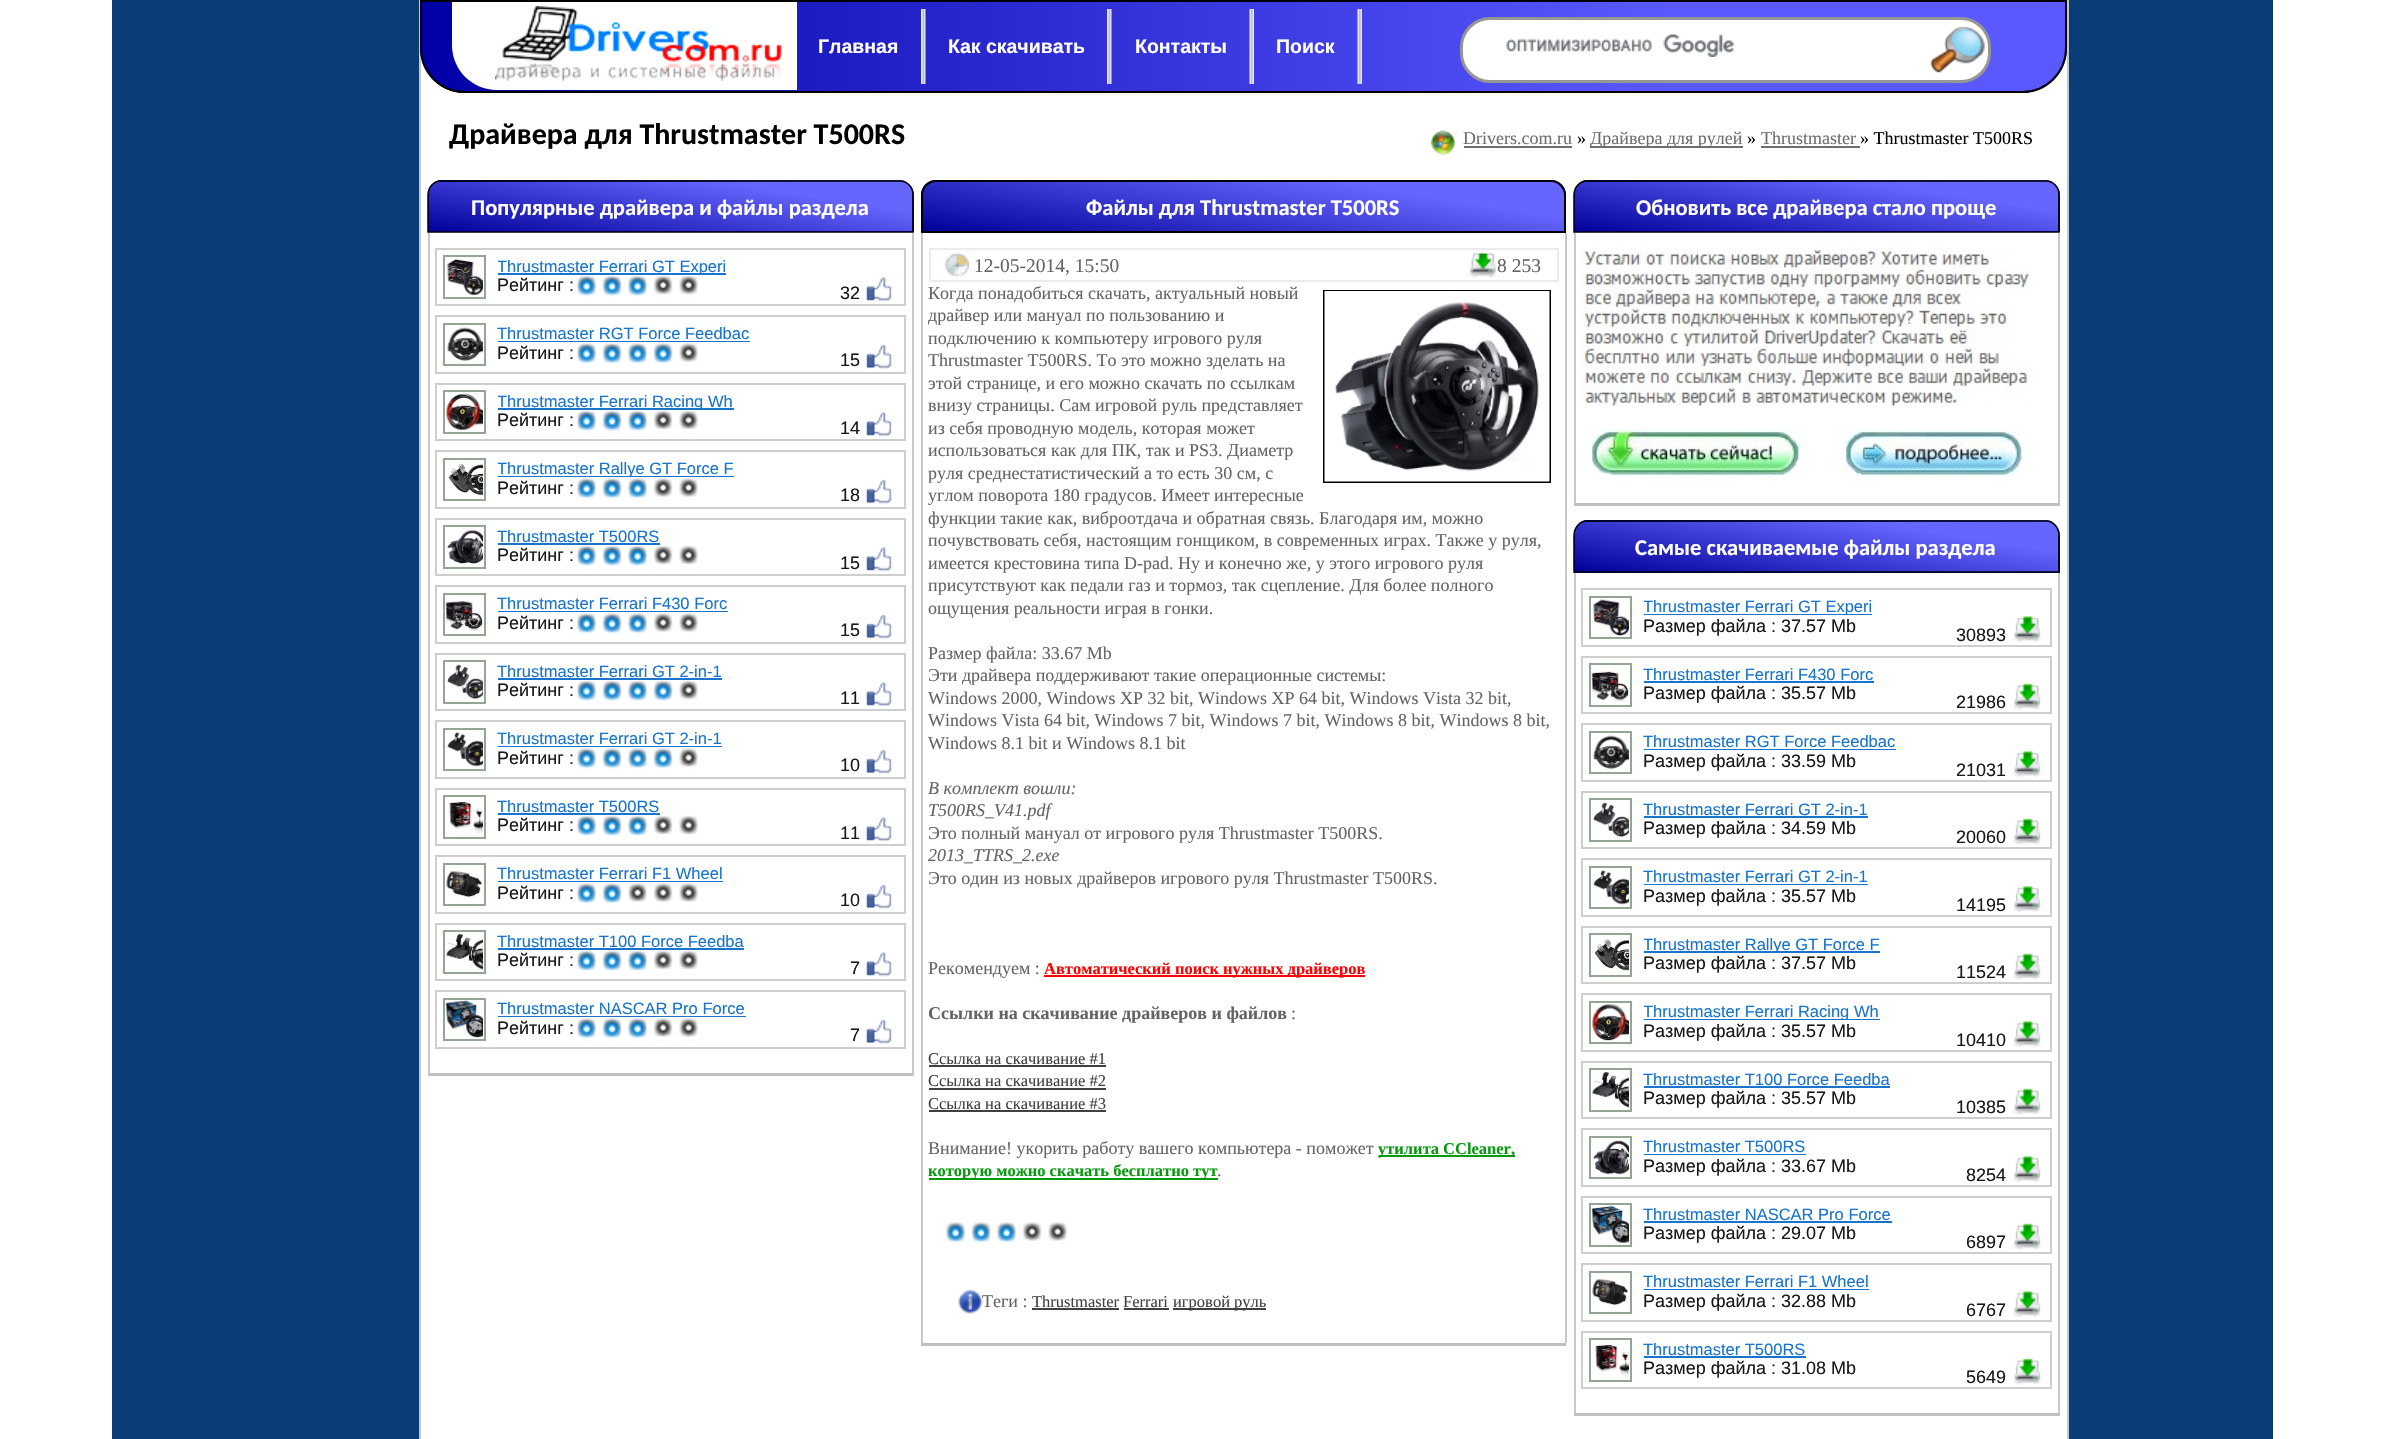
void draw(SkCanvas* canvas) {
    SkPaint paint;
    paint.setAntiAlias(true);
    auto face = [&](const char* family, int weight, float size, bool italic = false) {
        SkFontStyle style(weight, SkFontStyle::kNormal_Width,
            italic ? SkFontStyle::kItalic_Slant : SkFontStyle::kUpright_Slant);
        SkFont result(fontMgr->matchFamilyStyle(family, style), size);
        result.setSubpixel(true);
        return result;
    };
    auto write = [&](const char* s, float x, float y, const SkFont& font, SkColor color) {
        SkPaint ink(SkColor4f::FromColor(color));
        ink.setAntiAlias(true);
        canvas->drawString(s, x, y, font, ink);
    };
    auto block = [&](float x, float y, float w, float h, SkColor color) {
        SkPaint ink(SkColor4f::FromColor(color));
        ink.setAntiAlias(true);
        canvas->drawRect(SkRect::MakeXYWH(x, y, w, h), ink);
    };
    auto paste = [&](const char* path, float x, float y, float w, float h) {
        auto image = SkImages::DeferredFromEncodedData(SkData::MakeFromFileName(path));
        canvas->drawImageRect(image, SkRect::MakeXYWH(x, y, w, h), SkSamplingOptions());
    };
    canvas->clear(SK_ColorWHITE);
    block(112, 0, 2161, 1439, SkColorSetRGB(10, 60, 119));
    block(421, 48, 1646, 1391, SK_ColorWHITE);
    block(2067, 0, 2, 1439, SkColorSetRGB(200, 200, 200));
    block(419, 0, 2, 1439, SkColorSetRGB(200, 200, 200));
    paint.setColor(SkColorSetRGB(0, 0, 255));
    canvas->drawPath(SkPathBuilder().moveTo(420, 0).lineTo(2067, 0).lineTo(2067, 48).cubicTo(2067, 73, 2047, 93, 2022, 93).lineTo(465, 93).cubicTo(440, 93, 420, 73, 420, 48).close().detach(), paint);
    canvas->save();
    canvas->clipPath(SkPathBuilder().moveTo(420, 0).lineTo(2067, 0).lineTo(2067, 48).cubicTo(2067, 73, 2047, 93, 2022, 93).lineTo(465, 93).cubicTo(440, 93, 420, 73, 420, 48).close().detach(), true);
    {
        const SkColor colors[] = {SkColorSetARGB(89, 0, 0, 0), SkColorSetARGB(89, 255, 255, 255)};
        const float stops[] = {0, 0.76f};
        const SkPoint ends[] = {{422, 47}, {2066, 46}};
        paint.setShader(SkGradientShader::MakeLinear(ends, colors, stops, 2, SkTileMode::kClamp));
        paint.setAlpha(255);
    }
    canvas->drawRect(SkRect::MakeXYWH(422, 2, 1644, 91), paint);
    canvas->restore();
    paint.setStyle(SkPaint::kStroke_Style);
    paint.setStrokeWidth(2);
    paint.setShader(nullptr);
    paint.setColor(SK_ColorBLACK);
    canvas->drawPath(SkPathBuilder().moveTo(421, 1).lineTo(2066, 1).lineTo(2066, 48).cubicTo(2066, 72.5f, 2046.5f, 92, 2022, 92).lineTo(465, 92).cubicTo(440.5f, 92, 421, 72.5f, 421, 48).close().detach(), paint);
    paint.setStyle(SkPaint::kFill_Style);
    paint.setColor(SK_ColorWHITE);
    canvas->drawPath(SkPathBuilder().moveTo(452, 2).lineTo(797, 2).lineTo(797, 90).lineTo(497, 90).cubicTo(472, 90, 452, 70, 452, 45).close().detach(), paint);
    paste("pic1.png", 495, 6, 287, 75);
    auto kFont1 = face("Liberation Sans", 700, 19.5f);
    write("Главная", 818, 53, kFont1, SK_ColorWHITE);
    paste("pic2.png", 921, 9, 5, 75);
    write("Как скачивать", 948, 53, kFont1, SK_ColorWHITE);
    paste("pic3.png", 1107, 9, 5, 75);
    write("Контакты", 1135, 53, kFont1, SK_ColorWHITE);
    paste("pic4.png", 1249, 9, 5, 75);
    write("Поиск", 1276, 53, kFont1, SK_ColorWHITE);
    paste("pic5.png", 1357, 9, 5, 75);
    canvas->drawRoundRect(SkRect::MakeXYWH(1461.5f, 18.5f, 528, 63), 28.5f, 28.5f, paint);
    paint.setStyle(SkPaint::kStroke_Style);
    paint.setStrokeWidth(3);
    paint.setColor(SkColorSetRGB(150, 150, 150));
    canvas->drawRoundRect(SkRect::MakeXYWH(1461.5f, 18.5f, 528, 63), 28.5f, 28.5f, paint);
    paste("pic6.png", 1506, 34, 228, 23);
    paste("pic7.png", 1930, 26, 55, 47);
    auto kFont2 = face("Carlito", 700, 30);
    write("Драйвера для Thrustmaster T500RS", 449, 144, kFont2, SK_ColorBLACK);
    paste("pic8.png", 1431, 130, 24, 25);
    auto kFont3 = face("Liberation Serif", 400, 18);
    write("Drivers.com.ru", 1463, 144, kFont3, SkColorSetRGB(110, 110, 110));
    block(1464, 146, 108, 2, SkColorSetRGB(110, 110, 110));
    write("»", 1577, 144, kFont3, SK_ColorBLACK);
    block(1590, 146, 153, 2, SkColorSetRGB(110, 110, 110));
    write("Драйвера для рулей", 1590, 144, kFont3, SkColorSetRGB(110, 110, 110));
    write("»", 1747, 144, kFont3, SK_ColorBLACK);
    write("Thrustmaster", 1761, 144, kFont3, SkColorSetRGB(110, 110, 110));
    block(1761, 146, 99, 2, SkColorSetRGB(110, 110, 110));
    write("» Thrustmaster T500RS", 1860, 144, kFont3, SK_ColorBLACK);
    paint.setStyle(SkPaint::kFill_Style);
    paint.setColor(SkColorSetRGB(0, 0, 255));
    canvas->drawPath(SkPathBuilder().moveTo(441, 180).lineTo(900, 180).cubicTo(907, 180, 914, 187, 914, 195).lineTo(914, 232).lineTo(428, 232).lineTo(428, 195).cubicTo(428, 187, 434, 180, 441, 180).close().detach(), paint);
    {
        const SkColor colors[] = {SkColorSetARGB(102, 0, 0, 0), SkColorSetARGB(102, 255, 255, 255)};
        const float stops[] = {0, 0.76f};
        const SkPoint ends[] = {{661, 218}, {680, 95}};
        paint.setShader(SkGradientShader::MakeLinear(ends, colors, stops, 2, SkTileMode::kClamp));
        paint.setAlpha(255);
    }
    canvas->drawPath(SkPathBuilder().moveTo(441, 180).lineTo(900, 180).cubicTo(902, 180, 905, 181, 907, 182).lineTo(434, 182).cubicTo(436, 181, 439, 180, 441, 180).close().detach(), paint);
    {
        const SkColor colors[] = {SkColorSetARGB(102, 0, 0, 0), SkColorSetARGB(102, 255, 255, 255)};
        const float stops[] = {0, 0.76f};
        const SkPoint ends[] = {{661, 268}, {680, 145}};
        paint.setShader(SkGradientShader::MakeLinear(ends, colors, stops, 2, SkTileMode::kClamp));
        paint.setAlpha(255);
    }
    canvas->drawPath(SkPathBuilder().moveTo(429, 188).cubicTo(430, 186, 432, 183, 434, 182).lineTo(907, 182).cubicTo(909, 183, 911, 186, 912, 188).lineTo(912, 231).lineTo(429, 231).close().detach(), paint);
    {
        const SkColor colors[] = {SkColorSetARGB(102, 0, 0, 0), SkColorSetARGB(102, 255, 255, 255)};
        const float stops[] = {0, 0.76f};
        const SkPoint ends[] = {{1144, 268}, {1163, 145}};
        paint.setShader(SkGradientShader::MakeLinear(ends, colors, stops, 2, SkTileMode::kClamp));
        paint.setAlpha(255);
    }
    canvas->drawPath(SkPathBuilder().moveTo(912, 188).cubicTo(913, 190, 914, 193, 914, 195).lineTo(914, 231).lineTo(912, 231).close().detach(), paint);
    paint.setStyle(SkPaint::kStroke_Style);
    paint.setStrokeWidth(1.5f);
    paint.setShader(nullptr);
    paint.setColor(SK_ColorBLACK);
    canvas->drawPath(SkPathBuilder().moveTo(441, 181).lineTo(900, 181).cubicTo(907, 181, 913, 187, 913, 195).lineTo(913, 232).lineTo(428, 232).lineTo(428, 195).cubicTo(428, 187, 434, 181, 441, 181).close().detach(), paint);
    auto kFont4 = face("Carlito", 700, 22.5f);
    write("Популярные драйвера и файлы раздела", 471, 215, kFont4, SK_ColorWHITE);
    block(912, 233, 2, 840, SkColorSetRGB(200, 200, 200));
    block(428, 233, 2, 840, SkColorSetRGB(200, 200, 200));
    paint.setStrokeWidth(2);
    paint.setColor(SkColorSetRGB(206, 206, 206));
    canvas->drawRect(SkRect::MakeXYWH(436, 249, 469, 56), paint);
    paint.setColor(SkColorSetRGB(148, 165, 148));
    canvas->drawRect(SkRect::MakeXYWH(444, 256, 41, 42), paint);
    paste("pic9.png", 447, 259, 36, 37);
    block(498, 273, 228, 2, SkColorSetRGB(24, 116, 205));
    canvas->save();
    canvas->clipRect(SkRect::MakeXYWH(498, 257, 405, 18));
    auto kFont5 = face("Liberation Sans", 400, 16.5f);
    write("Thrustmaster Ferrari GT Experi", 497, 272, kFont5, SkColorSetRGB(24, 116, 205));
    canvas->restore();
    auto kFont6 = face("Liberation Sans", 400, 18);
    write("Рейтинг :", 497, 291, kFont6, SkColorSetRGB(24, 24, 24));
    paste("pic10.png", 577, 275, 121, 24);
    paste("pic11.png", 577, 273, 70, 23);
    write("32", 840, 299, kFont6, SkColorSetRGB(24, 24, 24));
    paste("pic12.png", 865, 277, 27, 25);
    paint.setColor(SkColorSetRGB(206, 206, 206));
    canvas->drawRect(SkRect::MakeXYWH(436, 316, 469, 57), paint);
    paint.setColor(SkColorSetRGB(148, 165, 148));
    canvas->drawRect(SkRect::MakeXYWH(444, 324, 41, 41), paint);
    paste("pic13.png", 447, 327, 36, 35);
    write("Thrustmaster RGT Force Feedbac", 497, 339, kFont5, SkColorSetRGB(24, 116, 205));
    block(498, 341, 252, 1, SkColorSetRGB(24, 116, 205));
    write("Рейтинг :", 497, 359, kFont6, SkColorSetRGB(24, 24, 24));
    paste("pic14.png", 577, 343, 121, 23);
    paste("pic15.png", 577, 340, 96, 24);
    write("15", 840, 366, kFont6, SkColorSetRGB(24, 24, 24));
    paste("pic16.png", 865, 344, 27, 26);
    paint.setColor(SkColorSetRGB(206, 206, 206));
    canvas->drawRect(SkRect::MakeXYWH(436, 384, 469, 56), paint);
    paint.setColor(SkColorSetRGB(148, 165, 148));
    canvas->drawRect(SkRect::MakeXYWH(444, 391, 41, 42), paint);
    paste("pic17.png", 445, 393, 38, 38);
    block(498, 408, 236, 2, SkColorSetRGB(24, 116, 205));
    canvas->save();
    canvas->clipRect(SkRect::MakeXYWH(498, 392, 405, 18));
    write("Thrustmaster Ferrari Racing Wh", 497, 407, kFont5, SkColorSetRGB(24, 116, 205));
    canvas->restore();
    write("Рейтинг :", 497, 426, kFont6, SkColorSetRGB(24, 24, 24));
    paste("pic18.png", 577, 410, 121, 24);
    paste("pic19.png", 577, 408, 70, 23);
    write("14", 840, 434, kFont6, SkColorSetRGB(24, 24, 24));
    paste("pic12.png", 865, 412, 27, 25);
    paint.setColor(SkColorSetRGB(206, 206, 206));
    canvas->drawRect(SkRect::MakeXYWH(436, 451, 469, 57), paint);
    paint.setColor(SkColorSetRGB(148, 165, 148));
    canvas->drawRect(SkRect::MakeXYWH(444, 459, 41, 41), paint);
    paste("pic20.png", 448, 463, 35, 32);
    block(498, 476, 236, 1, SkColorSetRGB(24, 116, 205));
    canvas->save();
    canvas->clipRect(SkRect::MakeXYWH(498, 459, 405, 18));
    write("Thrustmaster Rallye GT Force F", 497, 474, kFont5, SkColorSetRGB(24, 116, 205));
    canvas->restore();
    write("Рейтинг :", 497, 494, kFont6, SkColorSetRGB(24, 24, 24));
    paste("pic21.png", 577, 478, 121, 23);
    paste("pic22.png", 577, 475, 70, 24);
    write("18", 840, 501, kFont6, SkColorSetRGB(24, 24, 24));
    paste("pic16.png", 865, 479, 27, 26);
    paint.setColor(SkColorSetRGB(206, 206, 206));
    canvas->drawRect(SkRect::MakeXYWH(436, 519, 469, 56), paint);
    paint.setColor(SkColorSetRGB(148, 165, 148));
    canvas->drawRect(SkRect::MakeXYWH(444, 526, 41, 42), paint);
    paste("pic23.png", 447, 529, 36, 35);
    write("Thrustmaster T500RS", 497, 542, kFont5, SkColorSetRGB(24, 116, 205));
    block(498, 543, 162, 2, SkColorSetRGB(24, 116, 205));
    write("Рейтинг :", 497, 561, kFont6, SkColorSetRGB(24, 24, 24));
    paste("pic10.png", 577, 545, 121, 24);
    paste("pic11.png", 577, 543, 70, 23);
    write("15", 840, 569, kFont6, SkColorSetRGB(24, 24, 24));
    paste("pic12.png", 865, 547, 27, 25);
    paint.setColor(SkColorSetRGB(206, 206, 206));
    canvas->drawRect(SkRect::MakeXYWH(436, 586, 469, 57), paint);
    paint.setColor(SkColorSetRGB(148, 165, 148));
    canvas->drawRect(SkRect::MakeXYWH(444, 594, 41, 41), paint);
    paste("pic24.png", 445, 601, 38, 30);
    write("Thrustmaster Ferrari F430 Forc", 497, 609, kFont5, SkColorSetRGB(24, 116, 205));
    block(498, 611, 230, 1, SkColorSetRGB(24, 116, 205));
    write("Рейтинг :", 497, 629, kFont6, SkColorSetRGB(24, 24, 24));
    paste("pic25.png", 577, 613, 121, 23);
    paste("pic26.png", 577, 610, 70, 24);
    write("15", 840, 636, kFont6, SkColorSetRGB(24, 24, 24));
    paste("pic16.png", 865, 614, 27, 26);
    paint.setColor(SkColorSetRGB(206, 206, 206));
    canvas->drawRect(SkRect::MakeXYWH(436, 654, 469, 56), paint);
    paint.setColor(SkColorSetRGB(148, 165, 148));
    canvas->drawRect(SkRect::MakeXYWH(444, 661, 41, 42), paint);
    paste("pic27.png", 447, 664, 36, 35);
    write("Thrustmaster Ferrari GT 2-in-1", 497, 677, kFont5, SkColorSetRGB(24, 116, 205));
    block(498, 678, 224, 2, SkColorSetRGB(24, 116, 205));
    write("Рейтинг :", 497, 696, kFont6, SkColorSetRGB(24, 24, 24));
    paste("pic28.png", 577, 680, 121, 24);
    paste("pic29.png", 577, 678, 96, 23);
    write("11", 840, 704, kFont6, SkColorSetRGB(24, 24, 24));
    paste("pic12.png", 865, 682, 27, 25);
    paint.setColor(SkColorSetRGB(206, 206, 206));
    canvas->drawRect(SkRect::MakeXYWH(436, 721, 469, 57), paint);
    paint.setColor(SkColorSetRGB(148, 165, 148));
    canvas->drawRect(SkRect::MakeXYWH(444, 729, 41, 41), paint);
    paste("pic30.png", 447, 732, 36, 35);
    write("Thrustmaster Ferrari GT 2-in-1", 497, 744, kFont5, SkColorSetRGB(24, 116, 205));
    block(498, 746, 224, 1, SkColorSetRGB(24, 116, 205));
    write("Рейтинг :", 497, 764, kFont6, SkColorSetRGB(24, 24, 24));
    paste("pic31.png", 577, 748, 121, 23);
    paste("pic32.png", 577, 745, 96, 24);
    write("10", 840, 771, kFont6, SkColorSetRGB(24, 24, 24));
    paste("pic16.png", 865, 749, 27, 26);
    paint.setColor(SkColorSetRGB(206, 206, 206));
    canvas->drawRect(SkRect::MakeXYWH(436, 789, 469, 56), paint);
    paint.setColor(SkColorSetRGB(148, 165, 148));
    canvas->drawRect(SkRect::MakeXYWH(444, 796, 41, 42), paint);
    paste("pic33.png", 449, 801, 34, 33);
    write("Thrustmaster T500RS", 497, 812, kFont5, SkColorSetRGB(24, 116, 205));
    block(498, 813, 162, 2, SkColorSetRGB(24, 116, 205));
    write("Рейтинг :", 497, 831, kFont6, SkColorSetRGB(24, 24, 24));
    paste("pic34.png", 577, 815, 121, 24);
    paste("pic35.png", 577, 813, 70, 23);
    write("11", 840, 839, kFont6, SkColorSetRGB(24, 24, 24));
    paste("pic12.png", 865, 817, 27, 25);
    paint.setColor(SkColorSetRGB(206, 206, 206));
    canvas->drawRect(SkRect::MakeXYWH(436, 856, 469, 57), paint);
    paint.setColor(SkColorSetRGB(148, 165, 148));
    canvas->drawRect(SkRect::MakeXYWH(444, 864, 41, 41), paint);
    paste("pic36.png", 446, 871, 37, 27);
    write("Thrustmaster Ferrari F1 Wheel", 497, 879, kFont5, SkColorSetRGB(24, 116, 205));
    block(498, 881, 225, 1, SkColorSetRGB(24, 116, 205));
    write("Рейтинг :", 497, 899, kFont6, SkColorSetRGB(24, 24, 24));
    paste("pic37.png", 577, 883, 121, 23);
    paste("pic38.png", 577, 880, 45, 24);
    write("10", 840, 906, kFont6, SkColorSetRGB(24, 24, 24));
    paste("pic16.png", 865, 884, 27, 26);
    paint.setColor(SkColorSetRGB(206, 206, 206));
    canvas->drawRect(SkRect::MakeXYWH(436, 924, 469, 56), paint);
    paint.setColor(SkColorSetRGB(148, 165, 148));
    canvas->drawRect(SkRect::MakeXYWH(444, 931, 41, 42), paint);
    paste("pic39.png", 446, 934, 37, 36);
    write("Thrustmaster T100 Force Feedba", 497, 947, kFont5, SkColorSetRGB(24, 116, 205));
    block(498, 948, 246, 2, SkColorSetRGB(24, 116, 205));
    write("Рейтинг :", 497, 966, kFont6, SkColorSetRGB(24, 24, 24));
    paste("pic40.png", 577, 950, 121, 24);
    paste("pic41.png", 577, 948, 70, 23);
    write("7", 850, 974, kFont6, SkColorSetRGB(24, 24, 24));
    paste("pic12.png", 865, 952, 27, 25);
    paint.setColor(SkColorSetRGB(206, 206, 206));
    canvas->drawRect(SkRect::MakeXYWH(436, 991, 469, 57), paint);
    paint.setColor(SkColorSetRGB(148, 165, 148));
    canvas->drawRect(SkRect::MakeXYWH(444, 999, 41, 41), paint);
    paste("pic42.png", 445, 1000, 38, 38);
    write("Thrustmaster NASCAR Pro Force", 497, 1014, kFont5, SkColorSetRGB(24, 116, 205));
    block(498, 1016, 248, 1, SkColorSetRGB(24, 116, 205));
    write("Рейтинг :", 497, 1034, kFont6, SkColorSetRGB(24, 24, 24));
    paste("pic43.png", 577, 1018, 121, 23);
    paste("pic44.png", 577, 1015, 70, 24);
    write("7", 850, 1041, kFont6, SkColorSetRGB(24, 24, 24));
    paste("pic16.png", 865, 1019, 27, 26);
    block(428, 1073, 486, 3, SkColorSetRGB(192, 192, 192));
    paint.setStyle(SkPaint::kFill_Style);
    paint.setColor(SkColorSetRGB(0, 0, 255));
    canvas->drawPath(SkPathBuilder().moveTo(936, 180).lineTo(1551, 180).cubicTo(1559.5f, 180, 1566, 186.5f, 1566, 195).lineTo(1566, 233).lineTo(921, 233).lineTo(921, 195).cubicTo(921, 186.5f, 927.5f, 180, 936, 180).close().detach(), paint);
    canvas->save();
    canvas->clipPath(SkPathBuilder().moveTo(936, 180).lineTo(1551, 180).cubicTo(1559.5f, 180, 1566, 186.5f, 1566, 195).lineTo(1566, 233).lineTo(921, 233).lineTo(921, 195).cubicTo(921, 186.5f, 927.5f, 180, 936, 180).close().detach(), true);
    {
        const SkColor colors[] = {SkColorSetARGB(102, 0, 0, 0), SkColorSetARGB(102, 255, 255, 255)};
        const float stops[] = {0, 0.76f};
        const SkPoint ends[] = {{1232, 280}, {1255, 133}};
        paint.setShader(SkGradientShader::MakeLinear(ends, colors, stops, 2, SkTileMode::kClamp));
        paint.setAlpha(255);
    }
    canvas->drawRect(SkRect::MakeXYWH(923, 182, 642, 49), paint);
    canvas->restore();
    paint.setStyle(SkPaint::kStroke_Style);
    paint.setShader(nullptr);
    paint.setColor(SK_ColorBLACK);
    canvas->drawPath(SkPathBuilder().moveTo(936, 181).lineTo(1551, 181).cubicTo(1558.5f, 181, 1565, 187.5f, 1565, 195).lineTo(1565, 232).lineTo(922, 232).lineTo(922, 195).cubicTo(922, 187.5f, 928.5f, 181, 936, 181).close().detach(), paint);
    write("Файлы для Thrustmaster T500RS", 1086, 215, kFont4, SK_ColorWHITE);
    block(1565, 233, 2, 1110, SkColorSetRGB(200, 200, 200));
    block(921, 233, 2, 1110, SkColorSetRGB(200, 200, 200));
    paint.setColor(SkColorSetRGB(235, 235, 235));
    canvas->drawRect(SkRect::MakeXYWH(930, 249, 628, 32), paint);
    paste("pic45.png", 945, 253, 24, 23);
    auto kFont7 = face("Liberation Serif", 400, 19.5f);
    write("12-05-2014, 15:50", 974, 272, kFont7, SkColorSetRGB(100, 100, 100));
    paste("pic46.png", 1468, 253, 28, 25);
    write("8 253", 1497, 272, kFont7, SkColorSetRGB(100, 100, 100));
    write("Когда понадобиться скачать, актуальный новый", 928, 299, kFont3, SkColorSetRGB(100, 100, 100));
    paint.setColor(SK_ColorBLACK);
    canvas->drawRect(SkRect::MakeXYWH(1324, 291, 226, 191), paint);
    paste("pic47.png", 1324, 291, 226, 191);
    write("драйвер или мануал по пользованию и", 928, 321, kFont3, SkColorSetRGB(100, 100, 100));
    write("подключению к компьютеру игрового руля", 928, 344, kFont3, SkColorSetRGB(100, 100, 100));
    write("Thrustmaster T500RS. То это можно зделать на", 928, 366, kFont3, SkColorSetRGB(100, 100, 100));
    write("этой странице, и его можно скачать по ссылкам", 928, 389, kFont3, SkColorSetRGB(100, 100, 100));
    write("внизу страницы. Сам игровой руль представляет", 928, 411, kFont3, SkColorSetRGB(100, 100, 100));
    write("из себя проводную модель, которая может", 928, 434, kFont3, SkColorSetRGB(100, 100, 100));
    write("использоваться как для ПК, так и PS3. Диаметр", 928, 456, kFont3, SkColorSetRGB(100, 100, 100));
    write("руля среднестатистический а то есть 30 см, с", 928, 479, kFont3, SkColorSetRGB(100, 100, 100));
    write("углом поворота 180 градусов. Имеет интересные", 928, 501, kFont3, SkColorSetRGB(100, 100, 100));
    write("функции такие как, виброотдача и обратная связь. Благодаря им, можно", 928, 524, kFont3, SkColorSetRGB(100, 100, 100));
    write("почувствовать себя, настоящим гонщиком, в современных играх. Также у руля,", 928, 546, kFont3, SkColorSetRGB(100, 100, 100));
    write("имеется крестовина типа D-pad. Ну и конечно же, у этого игрового руля", 928, 569, kFont3, SkColorSetRGB(100, 100, 100));
    write("присутствуют как педали газ и тормоз, так сцепление. Для более полного", 928, 591, kFont3, SkColorSetRGB(100, 100, 100));
    write("ощущения реальности играя в гонки.", 928, 614, kFont3, SkColorSetRGB(100, 100, 100));
    write("Размер файла: 33.67 Mb", 928, 659, kFont3, SkColorSetRGB(100, 100, 100));
    write("Эти драйвера поддерживают такие операционные системы:", 928, 681, kFont3, SkColorSetRGB(100, 100, 100));
    write("Windows 2000, Windows XP 32 bit, Windows XP 64 bit, Windows Vista 32 bit,", 928, 704, kFont3, SkColorSetRGB(100, 100, 100));
    write("Windows Vista 64 bit, Windows 7 bit, Windows 7 bit, Windows 8 bit, Windows 8 bit,", 928, 726, kFont3, SkColorSetRGB(100, 100, 100));
    write("Windows 8.1 bit и Windows 8.1 bit", 928, 749, kFont3, SkColorSetRGB(100, 100, 100));
    auto kFont8 = face("Liberation Serif", 400, 18, true);
    write("В комплект вошли:", 928, 794, kFont8, SkColorSetRGB(100, 100, 100));
    write("T500RS_V41.pdf", 928, 816, kFont8, SkColorSetRGB(100, 100, 100));
    write("Это полный мануал от игрового руля Thrustmaster T500RS.", 928, 839, kFont3, SkColorSetRGB(100, 100, 100));
    write("2013_TTRS_2.exe", 928, 861, kFont8, SkColorSetRGB(100, 100, 100));
    write("Это один из новых драйверов игрового руля Thrustmaster T500RS.", 928, 884, kFont3, SkColorSetRGB(100, 100, 100));
    write("Рекомендуем :", 928, 974, kFont3, SkColorSetRGB(100, 100, 100));
    block(1044, 975, 321, 2, SkColorSetRGB(255, 1, 1));
    auto kFont9 = face("Liberation Serif", 700, 16.5f);
    write("Автоматический поиск нужных драйверов", 1044, 974, kFont9, SkColorSetRGB(255, 1, 1));
    auto kFont10 = face("Liberation Serif", 700, 18);
    write("Ссылки на скачивание драйверов и файлов", 928, 1019, kFont10, SkColorSetRGB(100, 100, 100));
    write(":", 1291, 1019, kFont3, SkColorSetRGB(100, 100, 100));
    auto kFont11 = face("Liberation Serif", 400, 16.5f);
    write("Ссылка на скачивание #1", 928, 1064, kFont11, SkColorSetRGB(64, 64, 64));
    block(929, 1065, 177, 2, SkColorSetRGB(64, 64, 64));
    write("Ссылка на скачивание #2", 928, 1086, kFont11, SkColorSetRGB(64, 64, 64));
    block(929, 1088, 177, 2, SkColorSetRGB(64, 64, 64));
    write("Ссылка на скачивание #3", 928, 1109, kFont11, SkColorSetRGB(64, 64, 64));
    block(929, 1110, 177, 2, SkColorSetRGB(64, 64, 64));
    write("Внимание! укорить работу вашего компьютера - поможет", 928, 1154, kFont3, SkColorSetRGB(100, 100, 100));
    block(1379, 1155, 136, 2, SkColorSetRGB(7, 154, 14));
    write("утилита CCleaner,", 1378, 1154, kFont9, SkColorSetRGB(7, 154, 14));
    block(929, 1178, 289, 2, SkColorSetRGB(7, 154, 14));
    write("которую можно скачать бесплатно тут", 928, 1176, kFont9, SkColorSetRGB(7, 154, 14));
    write(".", 1217, 1176, kFont3, SkColorSetRGB(100, 100, 100));
    paste("pic48.png", 946, 1222, 121, 23);
    paste("pic49.png", 946, 1219, 70, 24);
    paste("pic50.png", 958, 1290, 25, 24);
    write("Теги :", 982, 1307, kFont3, SkColorSetRGB(100, 100, 100));
    write("Thrustmaster", 1032, 1307, kFont11, SkColorSetRGB(64, 64, 64));
    block(1032, 1308, 87, 2, SkColorSetRGB(64, 64, 64));
    write("Ferrari", 1123, 1307, kFont11, SkColorSetRGB(64, 64, 64));
    block(1124, 1308, 45, 2, SkColorSetRGB(64, 64, 64));
    block(1173, 1308, 93, 2, SkColorSetRGB(64, 64, 64));
    write("игровой руль", 1173, 1307, kFont11, SkColorSetRGB(64, 64, 64));
    block(921, 1343, 645, 3, SkColorSetRGB(192, 192, 192));
    paint.setStyle(SkPaint::kFill_Style);
    paint.setColor(SkColorSetRGB(0, 0, 255));
    canvas->drawPath(SkPathBuilder().moveTo(1587, 180).lineTo(2046, 180).cubicTo(2053, 180, 2060, 187, 2060, 195).lineTo(2060, 232).lineTo(1574, 232).lineTo(1574, 195).cubicTo(1574, 187, 1580, 180, 1587, 180).close().detach(), paint);
    {
        const SkColor colors[] = {SkColorSetARGB(102, 0, 0, 0), SkColorSetARGB(102, 255, 255, 255)};
        const float stops[] = {0, 0.76f};
        const SkPoint ends[] = {{1807, 218}, {1826, 95}};
        paint.setShader(SkGradientShader::MakeLinear(ends, colors, stops, 2, SkTileMode::kClamp));
        paint.setAlpha(255);
    }
    canvas->drawPath(SkPathBuilder().moveTo(1587, 180).lineTo(2046, 180).cubicTo(2048, 180, 2051, 181, 2053, 182).lineTo(1580, 182).cubicTo(1582, 181, 1585, 180, 1587, 180).close().detach(), paint);
    {
        const SkColor colors[] = {SkColorSetARGB(102, 0, 0, 0), SkColorSetARGB(102, 255, 255, 255)};
        const float stops[] = {0, 0.76f};
        const SkPoint ends[] = {{1807, 268}, {1826, 145}};
        paint.setShader(SkGradientShader::MakeLinear(ends, colors, stops, 2, SkTileMode::kClamp));
        paint.setAlpha(255);
    }
    canvas->drawPath(SkPathBuilder().moveTo(1575, 188).cubicTo(1576, 186, 1578, 183, 1580, 182).lineTo(2053, 182).cubicTo(2055, 183, 2057, 186, 2058, 188).lineTo(2058, 231).lineTo(1575, 231).close().detach(), paint);
    {
        const SkColor colors[] = {SkColorSetARGB(102, 0, 0, 0), SkColorSetARGB(102, 255, 255, 255)};
        const float stops[] = {0, 0.76f};
        const SkPoint ends[] = {{2290, 268}, {2309, 145}};
        paint.setShader(SkGradientShader::MakeLinear(ends, colors, stops, 2, SkTileMode::kClamp));
        paint.setAlpha(255);
    }
    canvas->drawPath(SkPathBuilder().moveTo(2058, 188).cubicTo(2059, 190, 2060, 193, 2060, 195).lineTo(2060, 231).lineTo(2058, 231).close().detach(), paint);
    paint.setStyle(SkPaint::kStroke_Style);
    paint.setStrokeWidth(1.5f);
    paint.setShader(nullptr);
    paint.setColor(SK_ColorBLACK);
    canvas->drawPath(SkPathBuilder().moveTo(1587, 181).lineTo(2046, 181).cubicTo(2053, 181, 2059, 187, 2059, 195).lineTo(2059, 232).lineTo(1574, 232).lineTo(1574, 195).cubicTo(1574, 187, 1580, 181, 1587, 181).close().detach(), paint);
    write("Обновить все драйвера стало проще", 1636, 215, kFont4, SK_ColorWHITE);
    block(2058, 233, 2, 270, SkColorSetRGB(200, 200, 200));
    block(1574, 233, 2, 270, SkColorSetRGB(200, 200, 200));
    paste("pic51.png", 1581, 247, 450, 234);
    block(1574, 503, 486, 3, SkColorSetRGB(192, 192, 192));
    paint.setStyle(SkPaint::kFill_Style);
    paint.setColor(SkColorSetRGB(0, 0, 255));
    canvas->drawPath(SkPathBuilder().moveTo(1587, 520).lineTo(2046, 520).cubicTo(2053, 520, 2060, 527, 2060, 536).lineTo(2060, 573).lineTo(1574, 573).lineTo(1574, 536).cubicTo(1574, 527, 1580, 520, 1587, 520).close().detach(), paint);
    {
        const SkColor colors[] = {SkColorSetARGB(102, 0, 0, 0), SkColorSetARGB(102, 255, 255, 255)};
        const float stops[] = {0, 0.76f};
        const SkPoint ends[] = {{1807, 559}, {1826, 436}};
        paint.setShader(SkGradientShader::MakeLinear(ends, colors, stops, 2, SkTileMode::kClamp));
        paint.setAlpha(255);
    }
    canvas->drawPath(SkPathBuilder().moveTo(1587, 520).lineTo(2046, 520).cubicTo(2048, 520, 2050, 521, 2052, 522).lineTo(1581, 522).cubicTo(1583, 521, 1585, 520, 1587, 520).close().detach(), paint);
    {
        const SkColor colors[] = {SkColorSetARGB(102, 0, 0, 0), SkColorSetARGB(102, 255, 255, 255)};
        const float stops[] = {0, 0.76f};
        const SkPoint ends[] = {{1807, 608}, {1826, 485}};
        paint.setShader(SkGradientShader::MakeLinear(ends, colors, stops, 2, SkTileMode::kClamp));
        paint.setAlpha(255);
    }
    canvas->drawPath(SkPathBuilder().moveTo(1575, 529).cubicTo(1576, 526, 1578, 523, 1581, 522).lineTo(2052, 522).cubicTo(2055, 523, 2057, 526, 2058, 529).lineTo(2058, 572).lineTo(1575, 572).close().detach(), paint);
    {
        const SkColor colors[] = {SkColorSetARGB(102, 0, 0, 0), SkColorSetARGB(102, 255, 255, 255)};
        const float stops[] = {0, 0.76f};
        const SkPoint ends[] = {{2290, 608}, {2309, 485}};
        paint.setShader(SkGradientShader::MakeLinear(ends, colors, stops, 2, SkTileMode::kClamp));
        paint.setAlpha(255);
    }
    canvas->drawPath(SkPathBuilder().moveTo(2058, 529).cubicTo(2059, 531, 2060, 533, 2060, 536).lineTo(2060, 572).lineTo(2058, 572).close().detach(), paint);
    paint.setStyle(SkPaint::kStroke_Style);
    paint.setShader(nullptr);
    paint.setColor(SK_ColorBLACK);
    canvas->drawPath(SkPathBuilder().moveTo(1587, 521).lineTo(2046, 521).cubicTo(2053, 521, 2059, 527.5f, 2059, 535.5f).lineTo(2059, 572).lineTo(1574, 572).lineTo(1574, 535.5f).cubicTo(1574, 527.5f, 1580, 521, 1587, 521).close().detach(), paint);
    write("Самые скачиваемые файлы раздела", 1635, 555, kFont4, SK_ColorWHITE);
    block(2058, 573, 2, 840, SkColorSetRGB(200, 200, 200));
    block(1574, 573, 2, 840, SkColorSetRGB(200, 200, 200));
    paint.setStrokeWidth(2);
    paint.setColor(SkColorSetRGB(206, 206, 206));
    canvas->drawRect(SkRect::MakeXYWH(1582, 589, 469, 57), paint);
    paint.setColor(SkColorSetRGB(148, 165, 148));
    canvas->drawRect(SkRect::MakeXYWH(1590, 597, 41, 41), paint);
    paste("pic52.png", 1593, 599, 36, 37);
    block(1644, 614, 228, 1, SkColorSetRGB(24, 116, 205));
    canvas->save();
    canvas->clipRect(SkRect::MakeXYWH(1644, 597, 405, 18));
    write("Thrustmaster Ferrari GT Experi", 1643, 612, kFont5, SkColorSetRGB(24, 116, 205));
    canvas->restore();
    write("Размер файла : 37.57 Mb", 1643, 632, kFont6, SkColorSetRGB(24, 24, 24));
    write("30893", 1956, 641, kFont6, SkColorSetRGB(24, 24, 24));
    paste("pic53.png", 2013, 616, 28, 26);
    paint.setColor(SkColorSetRGB(206, 206, 206));
    canvas->drawRect(SkRect::MakeXYWH(1582, 657, 469, 56), paint);
    paint.setColor(SkColorSetRGB(148, 165, 148));
    canvas->drawRect(SkRect::MakeXYWH(1590, 664, 41, 42), paint);
    paste("pic54.png", 1591, 671, 38, 31);
    write("Thrustmaster Ferrari F430 Forc", 1643, 680, kFont5, SkColorSetRGB(24, 116, 205));
    block(1644, 681, 230, 2, SkColorSetRGB(24, 116, 205));
    write("Размер файла : 35.57 Mb", 1643, 699, kFont6, SkColorSetRGB(24, 24, 24));
    write("21986", 1956, 708, kFont6, SkColorSetRGB(24, 24, 24));
    paste("pic55.png", 2012, 683, 29, 27);
    paint.setColor(SkColorSetRGB(206, 206, 206));
    canvas->drawRect(SkRect::MakeXYWH(1582, 724, 469, 57), paint);
    paint.setColor(SkColorSetRGB(148, 165, 148));
    canvas->drawRect(SkRect::MakeXYWH(1590, 732, 41, 41), paint);
    paste("pic13.png", 1593, 735, 36, 35);
    write("Thrustmaster RGT Force Feedbac", 1643, 747, kFont5, SkColorSetRGB(24, 116, 205));
    block(1644, 749, 252, 1, SkColorSetRGB(24, 116, 205));
    write("Размер файла : 33.59 Mb", 1643, 767, kFont6, SkColorSetRGB(24, 24, 24));
    write("21031", 1956, 776, kFont6, SkColorSetRGB(24, 24, 24));
    paste("pic53.png", 2013, 751, 28, 26);
    paint.setColor(SkColorSetRGB(206, 206, 206));
    canvas->drawRect(SkRect::MakeXYWH(1582, 792, 469, 56), paint);
    paint.setColor(SkColorSetRGB(148, 165, 148));
    canvas->drawRect(SkRect::MakeXYWH(1590, 799, 41, 42), paint);
    paste("pic56.png", 1593, 802, 36, 35);
    write("Thrustmaster Ferrari GT 2-in-1", 1643, 815, kFont5, SkColorSetRGB(24, 116, 205));
    block(1644, 816, 224, 2, SkColorSetRGB(24, 116, 205));
    write("Размер файла : 34.59 Mb", 1643, 834, kFont6, SkColorSetRGB(24, 24, 24));
    write("20060", 1956, 843, kFont6, SkColorSetRGB(24, 24, 24));
    paste("pic55.png", 2012, 818, 29, 27);
    paint.setColor(SkColorSetRGB(206, 206, 206));
    canvas->drawRect(SkRect::MakeXYWH(1582, 859, 469, 57), paint);
    paint.setColor(SkColorSetRGB(148, 165, 148));
    canvas->drawRect(SkRect::MakeXYWH(1590, 867, 41, 41), paint);
    paste("pic30.png", 1593, 870, 36, 35);
    write("Thrustmaster Ferrari GT 2-in-1", 1643, 882, kFont5, SkColorSetRGB(24, 116, 205));
    block(1644, 884, 224, 1, SkColorSetRGB(24, 116, 205));
    write("Размер файла : 35.57 Mb", 1643, 902, kFont6, SkColorSetRGB(24, 24, 24));
    write("14195", 1956, 911, kFont6, SkColorSetRGB(24, 24, 24));
    paste("pic53.png", 2013, 886, 28, 26);
    paint.setColor(SkColorSetRGB(206, 206, 206));
    canvas->drawRect(SkRect::MakeXYWH(1582, 927, 469, 56), paint);
    paint.setColor(SkColorSetRGB(148, 165, 148));
    canvas->drawRect(SkRect::MakeXYWH(1590, 934, 41, 42), paint);
    paste("pic57.png", 1594, 939, 35, 32);
    block(1644, 951, 236, 2, SkColorSetRGB(24, 116, 205));
    canvas->save();
    canvas->clipRect(SkRect::MakeXYWH(1644, 935, 405, 18));
    write("Thrustmaster Rallye GT Force F", 1643, 950, kFont5, SkColorSetRGB(24, 116, 205));
    canvas->restore();
    write("Размер файла : 37.57 Mb", 1643, 969, kFont6, SkColorSetRGB(24, 24, 24));
    write("11524", 1956, 978, kFont6, SkColorSetRGB(24, 24, 24));
    paste("pic55.png", 2012, 953, 29, 27);
    paint.setColor(SkColorSetRGB(206, 206, 206));
    canvas->drawRect(SkRect::MakeXYWH(1582, 994, 469, 57), paint);
    paint.setColor(SkColorSetRGB(148, 165, 148));
    canvas->drawRect(SkRect::MakeXYWH(1590, 1002, 41, 41), paint);
    paste("pic58.png", 1591, 1003, 38, 38);
    block(1644, 1019, 236, 1, SkColorSetRGB(24, 116, 205));
    canvas->save();
    canvas->clipRect(SkRect::MakeXYWH(1644, 1002, 405, 18));
    write("Thrustmaster Ferrari Racing Wh", 1643, 1017, kFont5, SkColorSetRGB(24, 116, 205));
    canvas->restore();
    write("Размер файла : 35.57 Mb", 1643, 1037, kFont6, SkColorSetRGB(24, 24, 24));
    write("10410", 1956, 1046, kFont6, SkColorSetRGB(24, 24, 24));
    paste("pic53.png", 2013, 1021, 28, 26);
    paint.setColor(SkColorSetRGB(206, 206, 206));
    canvas->drawRect(SkRect::MakeXYWH(1582, 1062, 469, 56), paint);
    paint.setColor(SkColorSetRGB(148, 165, 148));
    canvas->drawRect(SkRect::MakeXYWH(1590, 1069, 41, 42), paint);
    paste("pic39.png", 1592, 1072, 37, 36);
    write("Thrustmaster T100 Force Feedba", 1643, 1085, kFont5, SkColorSetRGB(24, 116, 205));
    block(1644, 1086, 246, 2, SkColorSetRGB(24, 116, 205));
    write("Размер файла : 35.57 Mb", 1643, 1104, kFont6, SkColorSetRGB(24, 24, 24));
    write("10385", 1956, 1113, kFont6, SkColorSetRGB(24, 24, 24));
    paste("pic55.png", 2012, 1088, 29, 27);
    paint.setColor(SkColorSetRGB(206, 206, 206));
    canvas->drawRect(SkRect::MakeXYWH(1582, 1129, 469, 57), paint);
    paint.setColor(SkColorSetRGB(148, 165, 148));
    canvas->drawRect(SkRect::MakeXYWH(1590, 1137, 41, 41), paint);
    paste("pic59.png", 1593, 1140, 36, 35);
    write("Thrustmaster T500RS", 1643, 1152, kFont5, SkColorSetRGB(24, 116, 205));
    block(1644, 1154, 162, 1, SkColorSetRGB(24, 116, 205));
    write("Размер файла : 33.67 Mb", 1643, 1172, kFont6, SkColorSetRGB(24, 24, 24));
    write("8254", 1966, 1181, kFont6, SkColorSetRGB(24, 24, 24));
    paste("pic53.png", 2013, 1156, 28, 26);
    paint.setColor(SkColorSetRGB(206, 206, 206));
    canvas->drawRect(SkRect::MakeXYWH(1582, 1197, 469, 56), paint);
    paint.setColor(SkColorSetRGB(148, 165, 148));
    canvas->drawRect(SkRect::MakeXYWH(1590, 1204, 41, 42), paint);
    paste("pic60.png", 1591, 1206, 38, 38);
    write("Thrustmaster NASCAR Pro Force", 1643, 1220, kFont5, SkColorSetRGB(24, 116, 205));
    block(1644, 1221, 248, 2, SkColorSetRGB(24, 116, 205));
    write("Размер файла : 29.07 Mb", 1643, 1239, kFont6, SkColorSetRGB(24, 24, 24));
    write("6897", 1966, 1248, kFont6, SkColorSetRGB(24, 24, 24));
    paste("pic55.png", 2012, 1223, 29, 27);
    paint.setColor(SkColorSetRGB(206, 206, 206));
    canvas->drawRect(SkRect::MakeXYWH(1582, 1264, 469, 57), paint);
    paint.setColor(SkColorSetRGB(148, 165, 148));
    canvas->drawRect(SkRect::MakeXYWH(1590, 1272, 41, 41), paint);
    paste("pic36.png", 1592, 1279, 37, 27);
    write("Thrustmaster Ferrari F1 Wheel", 1643, 1287, kFont5, SkColorSetRGB(24, 116, 205));
    block(1644, 1289, 225, 1, SkColorSetRGB(24, 116, 205));
    write("Размер файла : 32.88 Mb", 1643, 1307, kFont6, SkColorSetRGB(24, 24, 24));
    write("6767", 1966, 1316, kFont6, SkColorSetRGB(24, 24, 24));
    paste("pic53.png", 2013, 1291, 28, 26);
    paint.setColor(SkColorSetRGB(206, 206, 206));
    canvas->drawRect(SkRect::MakeXYWH(1582, 1332, 469, 56), paint);
    paint.setColor(SkColorSetRGB(148, 165, 148));
    canvas->drawRect(SkRect::MakeXYWH(1590, 1339, 41, 42), paint);
    paste("pic33.png", 1595, 1344, 34, 33);
    write("Thrustmaster T500RS", 1643, 1355, kFont5, SkColorSetRGB(24, 116, 205));
    block(1644, 1356, 162, 2, SkColorSetRGB(24, 116, 205));
    write("Размер файла : 31.08 Mb", 1643, 1374, kFont6, SkColorSetRGB(24, 24, 24));
    write("5649", 1966, 1383, kFont6, SkColorSetRGB(24, 24, 24));
    paste("pic55.png", 2012, 1358, 29, 27);
    block(1574, 1413, 486, 3, SkColorSetRGB(192, 192, 192));
}
